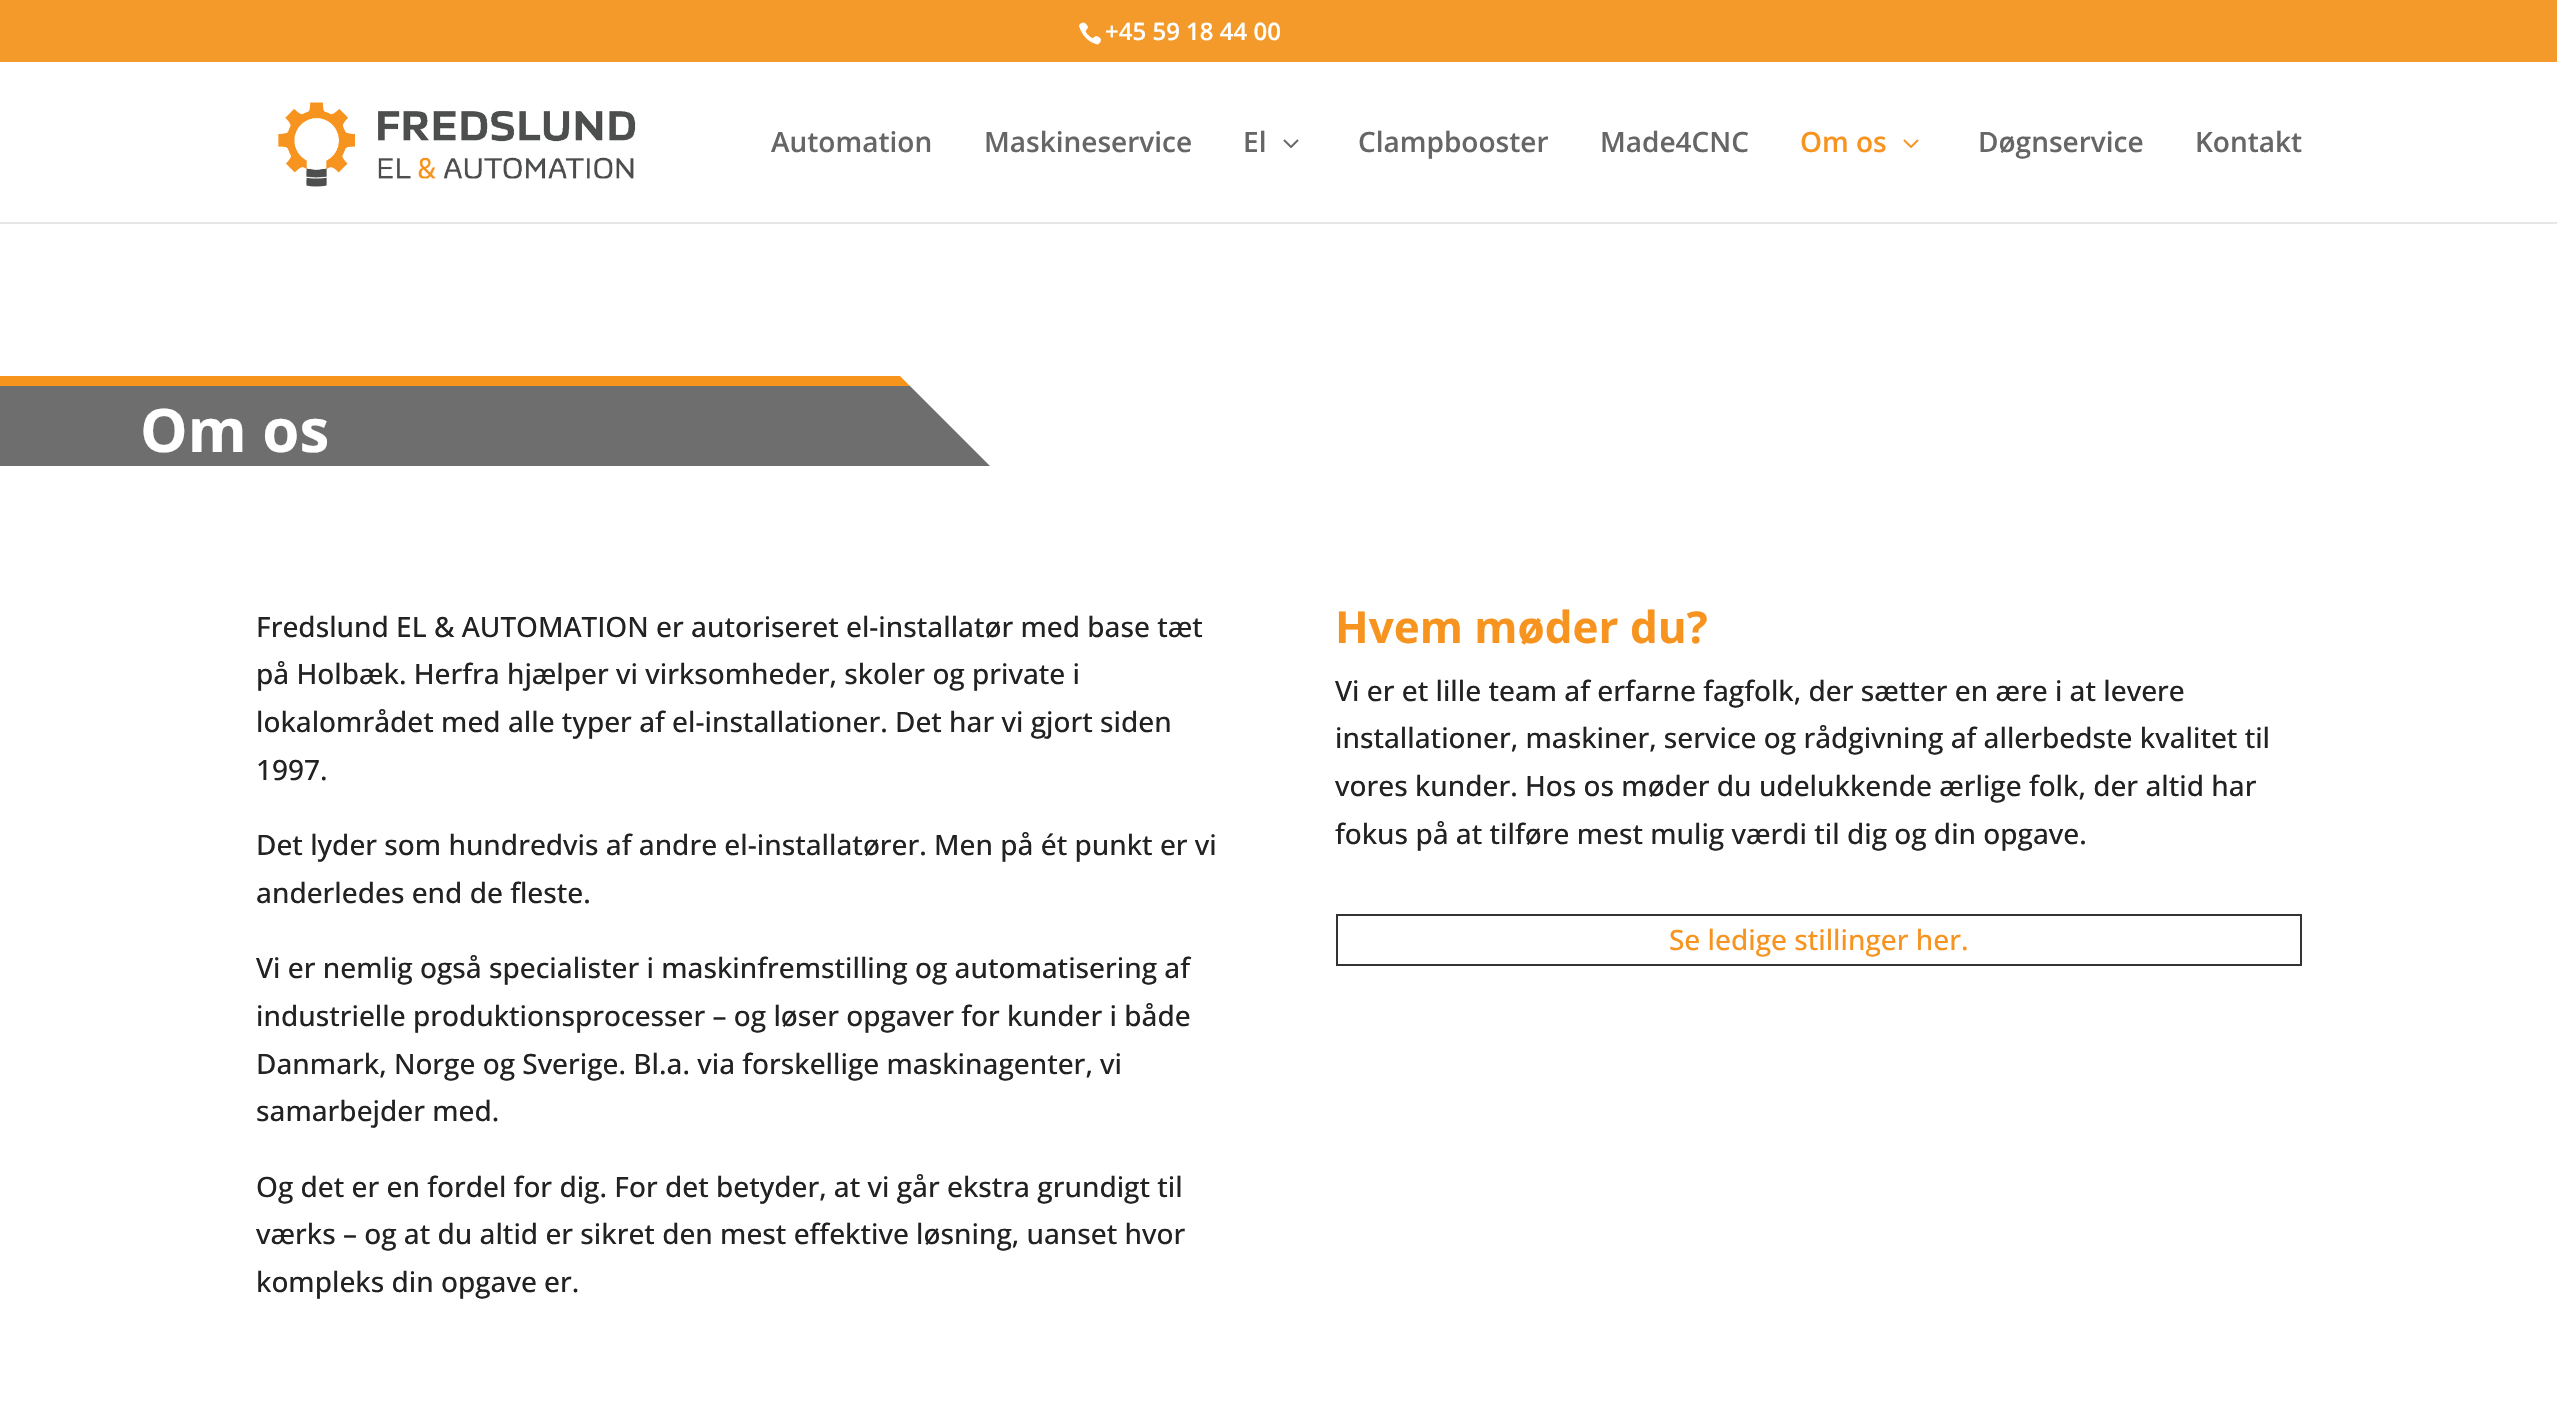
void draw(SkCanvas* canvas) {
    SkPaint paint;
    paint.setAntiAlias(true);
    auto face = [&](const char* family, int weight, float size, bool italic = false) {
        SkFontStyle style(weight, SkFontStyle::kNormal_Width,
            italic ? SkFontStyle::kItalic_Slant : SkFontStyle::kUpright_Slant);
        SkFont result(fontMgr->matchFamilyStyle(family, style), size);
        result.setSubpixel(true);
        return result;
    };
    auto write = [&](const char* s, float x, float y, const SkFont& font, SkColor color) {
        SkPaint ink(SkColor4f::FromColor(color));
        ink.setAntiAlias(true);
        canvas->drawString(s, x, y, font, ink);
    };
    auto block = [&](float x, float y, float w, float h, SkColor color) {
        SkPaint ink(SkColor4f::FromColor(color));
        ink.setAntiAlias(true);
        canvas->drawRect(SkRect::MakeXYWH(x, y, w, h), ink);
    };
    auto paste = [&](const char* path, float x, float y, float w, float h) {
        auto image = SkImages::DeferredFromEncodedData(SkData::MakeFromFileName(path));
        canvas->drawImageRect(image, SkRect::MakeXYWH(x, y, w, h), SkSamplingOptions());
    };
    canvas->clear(SK_ColorWHITE);
    block(0, 0, 2557, 62, SkColorSetRGB(244, 154, 42));
    paste("pic1.png", 1079, 22, 22, 23);
    auto kFont1 = face("Open Sans", 600, 24);
    write("+45 59 18 44 00", 1105, 40, kFont1, SK_ColorWHITE);
    block(0, 222, 2557, 2, SkColorSetRGB(230, 230, 230));
    paste("pic2.png", 278, 102, 358, 85);
    auto kFont2 = face("Open Sans", 600, 28);
    write("Automation", 771, 152, kFont2, SkColorSetRGB(102, 102, 102));
    write("Maskineservice", 984, 152, kFont2, SkColorSetRGB(102, 102, 102));
    write("El", 1243, 152, kFont2, SkColorSetRGB(102, 102, 102));
    paste("pic3.png", 1283, 139, 16, 9);
    write("Clampbooster", 1358, 152, kFont2, SkColorSetRGB(102, 102, 102));
    write("Made4CNC", 1600, 152, kFont2, SkColorSetRGB(102, 102, 102));
    write("Om os", 1800, 152, kFont2, SkColorSetRGB(247, 148, 32));
    paste("pic4.png", 1903, 139, 16, 9);
    write("Døgnservice", 1978, 152, kFont2, SkColorSetRGB(102, 102, 102));
    write("Kontakt", 2195, 152, kFont2, SkColorSetRGB(102, 102, 102));
    paint.setColor(SkColorSetRGB(246, 148, 27));
    canvas->drawPath(SkPathBuilder().moveTo(0, 376).lineTo(900, 376).lineTo(910, 386).lineTo(0, 386).close().detach(), paint);
    paint.setColor(SkColorSetRGB(110, 110, 110));
    canvas->drawPath(SkPathBuilder().moveTo(0, 386).lineTo(910, 386).lineTo(990, 466).lineTo(0, 466).close().detach(), paint);
    auto kFont3 = face("Open Sans", 700, 60);
    write("Om os", 140, 452, kFont3, SK_ColorWHITE);
    auto kFont4 = face("Open Sans", 500, 28);
    write("Fredslund EL & AUTOMATION er autoriseret el-installatør med base tæt", 256, 637, kFont4, SkColorSetRGB(34, 34, 34));
    write("på Holbæk. Herfra hjælper vi virksomheder, skoler og private i", 256, 684, kFont4, SkColorSetRGB(34, 34, 34));
    write("lokalområdet med alle typer af el-installationer. Det har vi gjort siden", 256, 732, kFont4, SkColorSetRGB(34, 34, 34));
    write("1997.", 256, 780, kFont4, SkColorSetRGB(34, 34, 34));
    write("Det lyder som hundredvis af andre el-installatører. Men på ét punkt er vi", 256, 855, kFont4, SkColorSetRGB(34, 34, 34));
    write("anderledes end de fleste.", 256, 903, kFont4, SkColorSetRGB(34, 34, 34));
    write("Vi er nemlig også specialister i maskinfremstilling og automatisering af", 256, 978, kFont4, SkColorSetRGB(34, 34, 34));
    write("industrielle produktionsprocesser – og løser opgaver for kunder i både", 256, 1026, kFont4, SkColorSetRGB(34, 34, 34));
    write("Danmark, Norge og Sverige. Bl.a. via forskellige maskinagenter, vi", 256, 1074, kFont4, SkColorSetRGB(34, 34, 34));
    write("samarbejder med.", 256, 1121, kFont4, SkColorSetRGB(34, 34, 34));
    write("Og det er en fordel for dig. For det betyder, at vi går ekstra grundigt til", 256, 1197, kFont4, SkColorSetRGB(34, 34, 34));
    write("værks – og at du altid er sikret den mest effektive løsning, uanset hvor", 256, 1244, kFont4, SkColorSetRGB(34, 34, 34));
    write("kompleks din opgave er.", 256, 1292, kFont4, SkColorSetRGB(34, 34, 34));
    auto kFont5 = face("Open Sans", 700, 44);
    write("Hvem møder du?", 1335, 643, kFont5, SkColorSetRGB(247, 148, 32));
    write("Vi er et lille team af erfarne fagfolk, der sætter en ære i at levere", 1335, 701, kFont4, SkColorSetRGB(34, 34, 34));
    write("installationer, maskiner, service og rådgivning af allerbedste kvalitet til", 1335, 748, kFont4, SkColorSetRGB(34, 34, 34));
    write("vores kunder. Hos os møder du udelukkende ærlige folk, der altid har", 1335, 796, kFont4, SkColorSetRGB(34, 34, 34));
    write("fokus på at tilføre mest mulig værdi til dig og din opgave.", 1335, 844, kFont4, SkColorSetRGB(34, 34, 34));
    paint.setStyle(SkPaint::kStroke_Style);
    paint.setStrokeWidth(2);
    paint.setColor(SkColorSetRGB(51, 51, 51));
    canvas->drawRect(SkRect::MakeXYWH(1337, 915, 964, 50), paint);
    write("Se ledige stillinger her.", 1669, 950, kFont4, SkColorSetRGB(247, 148, 32));
}
